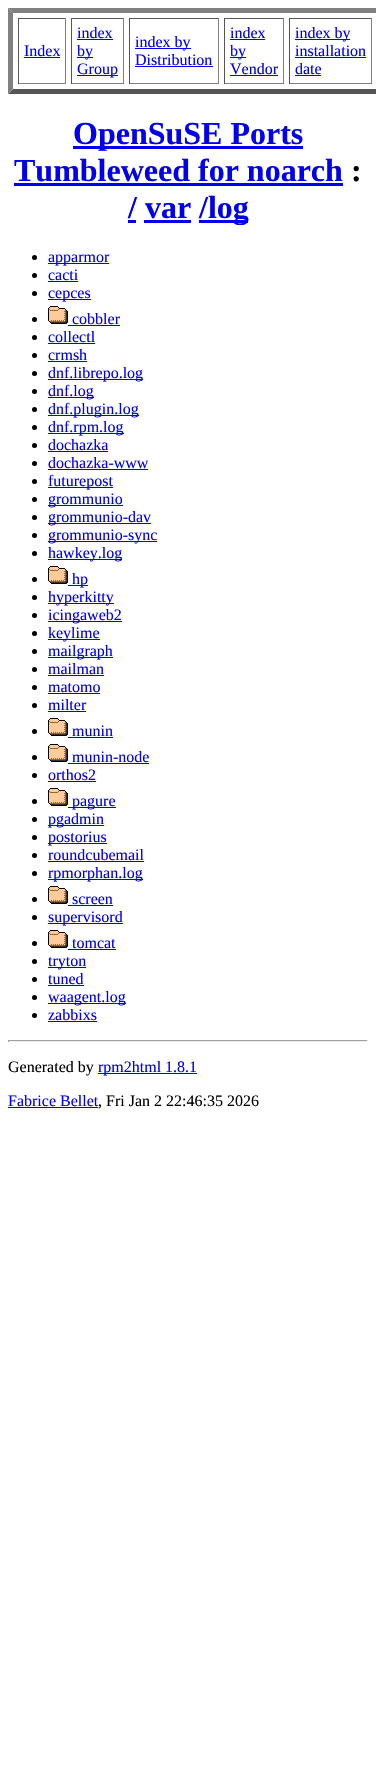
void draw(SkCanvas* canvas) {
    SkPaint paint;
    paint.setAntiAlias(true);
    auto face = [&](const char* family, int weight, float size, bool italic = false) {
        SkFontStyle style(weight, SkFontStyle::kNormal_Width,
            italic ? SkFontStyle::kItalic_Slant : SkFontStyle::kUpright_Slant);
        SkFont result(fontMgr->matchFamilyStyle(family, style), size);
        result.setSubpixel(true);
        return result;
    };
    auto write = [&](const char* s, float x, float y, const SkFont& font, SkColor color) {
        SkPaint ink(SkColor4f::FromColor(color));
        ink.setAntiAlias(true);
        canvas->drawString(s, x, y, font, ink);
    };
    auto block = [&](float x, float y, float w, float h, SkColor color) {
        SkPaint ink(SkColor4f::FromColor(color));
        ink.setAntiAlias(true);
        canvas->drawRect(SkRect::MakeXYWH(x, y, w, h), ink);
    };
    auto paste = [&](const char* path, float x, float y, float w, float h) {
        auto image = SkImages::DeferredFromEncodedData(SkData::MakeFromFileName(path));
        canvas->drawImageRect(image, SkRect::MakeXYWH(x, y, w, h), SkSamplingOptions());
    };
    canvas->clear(SK_ColorWHITE);
    paint.setColor(SkColorSetRGB(128, 128, 128));
    canvas->drawPath(SkPathBuilder().moveTo(8, 8).lineTo(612, 8).lineTo(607, 13).lineTo(13, 13).close().detach(), paint);
    paint.setColor(SkColorSetRGB(85, 85, 85));
    canvas->drawPath(SkPathBuilder().moveTo(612, 94).lineTo(8, 94).lineTo(13, 89).lineTo(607, 89).close().detach(), paint);
    paint.setColor(SkColorSetRGB(128, 128, 128));
    canvas->drawPath(SkPathBuilder().moveTo(8, 94).lineTo(8, 8).lineTo(13, 13).lineTo(13, 89).close().detach(), paint);
    block(18, 18, 48, 1, SkColorSetRGB(85, 85, 85));
    block(65, 18, 1, 66, SkColorSetRGB(128, 128, 128));
    block(18, 83, 48, 1, SkColorSetRGB(128, 128, 128));
    block(18, 18, 1, 66, SkColorSetRGB(85, 85, 85));
    auto kFont1 = face("Liberation Serif", 400, 16);
    write("Index", 24, 56, kFont1, SkColorSetRGB(0, 0, 238));
    block(24, 57, 36, 1, SkColorSetRGB(0, 0, 238));
    block(71, 18, 53, 1, SkColorSetRGB(85, 85, 85));
    block(123, 18, 1, 66, SkColorSetRGB(128, 128, 128));
    block(71, 83, 53, 1, SkColorSetRGB(128, 128, 128));
    block(71, 18, 1, 66, SkColorSetRGB(85, 85, 85));
    write("index", 77, 38, kFont1, SkColorSetRGB(0, 0, 238));
    block(77, 39, 36, 1, SkColorSetRGB(0, 0, 238));
    block(77, 57, 16, 1, SkColorSetRGB(0, 0, 238));
    write("by", 77, 56, kFont1, SkColorSetRGB(0, 0, 238));
    block(77, 75, 41, 1, SkColorSetRGB(0, 0, 238));
    write("Group", 77, 74, kFont1, SkColorSetRGB(0, 0, 238));
    block(129, 18, 90, 1, SkColorSetRGB(85, 85, 85));
    block(218, 18, 1, 66, SkColorSetRGB(128, 128, 128));
    block(129, 83, 90, 1, SkColorSetRGB(128, 128, 128));
    block(129, 18, 1, 66, SkColorSetRGB(85, 85, 85));
    block(135, 48, 56, 1, SkColorSetRGB(0, 0, 238));
    write("index by", 135, 47, kFont1, SkColorSetRGB(0, 0, 238));
    write("Distribution", 135, 65, kFont1, SkColorSetRGB(0, 0, 238));
    block(135, 66, 78, 1, SkColorSetRGB(0, 0, 238));
    block(224, 18, 60, 1, SkColorSetRGB(85, 85, 85));
    block(283, 18, 1, 66, SkColorSetRGB(128, 128, 128));
    block(224, 83, 60, 1, SkColorSetRGB(128, 128, 128));
    block(224, 18, 1, 66, SkColorSetRGB(85, 85, 85));
    write("index", 230, 38, kFont1, SkColorSetRGB(0, 0, 238));
    block(230, 39, 35, 1, SkColorSetRGB(0, 0, 238));
    block(230, 57, 16, 1, SkColorSetRGB(0, 0, 238));
    write("by", 230, 56, kFont1, SkColorSetRGB(0, 0, 238));
    write("Vendor", 230, 74, kFont1, SkColorSetRGB(0, 0, 238));
    block(230, 75, 48, 1, SkColorSetRGB(0, 0, 238));
    block(289, 18, 83, 1, SkColorSetRGB(85, 85, 85));
    block(371, 18, 1, 66, SkColorSetRGB(128, 128, 128));
    block(289, 83, 83, 1, SkColorSetRGB(128, 128, 128));
    block(289, 18, 1, 66, SkColorSetRGB(85, 85, 85));
    block(295, 39, 55, 1, SkColorSetRGB(0, 0, 238));
    write("index by", 295, 38, kFont1, SkColorSetRGB(0, 0, 238));
    write("installation", 295, 56, kFont1, SkColorSetRGB(0, 0, 238));
    block(295, 57, 71, 1, SkColorSetRGB(0, 0, 238));
    write("date", 295, 74, kFont1, SkColorSetRGB(0, 0, 238));
    block(295, 75, 26, 1, SkColorSetRGB(0, 0, 238));
    block(73, 146, 230, 3, SkColorSetRGB(0, 0, 238));
    auto kFont2 = face("Liberation Serif", 700, 32);
    write("OpenSuSE Ports", 73, 144, kFont2, SkColorSetRGB(0, 0, 238));
    write("Tumbleweed for noarch", 14, 181, kFont2, SkColorSetRGB(0, 0, 238));
    block(14, 183, 329, 3, SkColorSetRGB(0, 0, 238));
    write(":", 351, 181, kFont2, SK_ColorBLACK);
    write("/ var", 128, 218, kFont2, SkColorSetRGB(0, 0, 238));
    block(128, 220, 8, 3, SkColorSetRGB(0, 0, 238));
    block(199, 220, 49, 3, SkColorSetRGB(0, 0, 238));
    write("/log", 199, 218, kFont2, SkColorSetRGB(0, 0, 238));
    block(144, 220, 47, 3, SkColorSetRGB(0, 0, 238));
    paint.setColor(SK_ColorBLACK);
    canvas->drawCircle(34.5f, 257.5f, 2.5f, paint);
    block(48, 263, 61, 1, SkColorSetRGB(0, 0, 238));
    write("apparmor", 48, 262, kFont1, SkColorSetRGB(0, 0, 238));
    canvas->drawCircle(34.5f, 275.5f, 2.5f, paint);
    write("cacti", 48, 280, kFont1, SkColorSetRGB(0, 0, 238));
    block(48, 281, 30, 1, SkColorSetRGB(0, 0, 238));
    canvas->drawCircle(34.5f, 293.5f, 2.5f, paint);
    block(48, 299, 43, 1, SkColorSetRGB(0, 0, 238));
    write("cepces", 48, 298, kFont1, SkColorSetRGB(0, 0, 238));
    canvas->drawCircle(34.5f, 319.5f, 2.5f, paint);
    paste("pic1.png", 48, 306, 20, 18);
    write("cobbler", 72, 324, kFont1, SkColorSetRGB(0, 0, 238));
    block(68, 325, 52, 1, SkColorSetRGB(0, 0, 238));
    canvas->drawCircle(34.5f, 337.5f, 2.5f, paint);
    write("collectl", 48, 342, kFont1, SkColorSetRGB(0, 0, 238));
    block(48, 343, 47, 1, SkColorSetRGB(0, 0, 238));
    canvas->drawCircle(34.5f, 355.5f, 2.5f, paint);
    write("crmsh", 48, 360, kFont1, SkColorSetRGB(0, 0, 238));
    block(48, 361, 39, 1, SkColorSetRGB(0, 0, 238));
    canvas->drawCircle(34.5f, 373.5f, 2.5f, paint);
    block(48, 379, 95, 1, SkColorSetRGB(0, 0, 238));
    write("dnf.librepo.log", 48, 378, kFont1, SkColorSetRGB(0, 0, 238));
    canvas->drawCircle(34.5f, 391.5f, 2.5f, paint);
    block(48, 397, 46, 1, SkColorSetRGB(0, 0, 238));
    write("dnf.log", 48, 396, kFont1, SkColorSetRGB(0, 0, 238));
    canvas->drawCircle(34.5f, 409.5f, 2.5f, paint);
    block(48, 415, 91, 1, SkColorSetRGB(0, 0, 238));
    write("dnf.plugin.log", 48, 414, kFont1, SkColorSetRGB(0, 0, 238));
    canvas->drawCircle(34.5f, 427.5f, 2.5f, paint);
    block(48, 433, 76, 1, SkColorSetRGB(0, 0, 238));
    write("dnf.rpm.log", 48, 432, kFont1, SkColorSetRGB(0, 0, 238));
    canvas->drawCircle(34.5f, 445.5f, 2.5f, paint);
    write("dochazka", 48, 450, kFont1, SkColorSetRGB(0, 0, 238));
    block(48, 451, 60, 1, SkColorSetRGB(0, 0, 238));
    canvas->drawCircle(34.5f, 463.5f, 2.5f, paint);
    write("dochazka-www", 48, 468, kFont1, SkColorSetRGB(0, 0, 238));
    block(48, 469, 100, 1, SkColorSetRGB(0, 0, 238));
    canvas->drawCircle(34.5f, 481.5f, 2.5f, paint);
    block(48, 487, 65, 1, SkColorSetRGB(0, 0, 238));
    write("futurepost", 48, 486, kFont1, SkColorSetRGB(0, 0, 238));
    canvas->drawCircle(34.5f, 499.5f, 2.5f, paint);
    block(48, 505, 75, 1, SkColorSetRGB(0, 0, 238));
    write("grommunio", 48, 504, kFont1, SkColorSetRGB(0, 0, 238));
    canvas->drawCircle(34.5f, 517.5f, 2.5f, paint);
    block(48, 523, 103, 1, SkColorSetRGB(0, 0, 238));
    write("grommunio-dav", 48, 522, kFont1, SkColorSetRGB(0, 0, 238));
    canvas->drawCircle(34.5f, 535.5f, 2.5f, paint);
    block(48, 541, 109, 1, SkColorSetRGB(0, 0, 238));
    write("grommunio-sync", 48, 540, kFont1, SkColorSetRGB(0, 0, 238));
    canvas->drawCircle(34.5f, 553.5f, 2.5f, paint);
    block(48, 559, 74, 1, SkColorSetRGB(0, 0, 238));
    write("hawkey.log", 48, 558, kFont1, SkColorSetRGB(0, 0, 238));
    canvas->drawCircle(34.5f, 579.5f, 2.5f, paint);
    paste("pic1.png", 48, 566, 20, 18);
    block(68, 585, 20, 1, SkColorSetRGB(0, 0, 238));
    write("hp", 72, 584, kFont1, SkColorSetRGB(0, 0, 238));
    canvas->drawCircle(34.5f, 597.5f, 2.5f, paint);
    block(48, 603, 66, 1, SkColorSetRGB(0, 0, 238));
    write("hyperkitty", 48, 602, kFont1, SkColorSetRGB(0, 0, 238));
    canvas->drawCircle(34.5f, 615.5f, 2.5f, paint);
    block(48, 621, 74, 1, SkColorSetRGB(0, 0, 238));
    write("icingaweb2", 48, 620, kFont1, SkColorSetRGB(0, 0, 238));
    canvas->drawCircle(34.5f, 633.5f, 2.5f, paint);
    block(48, 639, 52, 1, SkColorSetRGB(0, 0, 238));
    write("keylime", 48, 638, kFont1, SkColorSetRGB(0, 0, 238));
    canvas->drawCircle(34.5f, 651.5f, 2.5f, paint);
    block(48, 657, 65, 1, SkColorSetRGB(0, 0, 238));
    write("mailgraph", 48, 656, kFont1, SkColorSetRGB(0, 0, 238));
    canvas->drawCircle(34.5f, 669.5f, 2.5f, paint);
    write("mailman", 48, 674, kFont1, SkColorSetRGB(0, 0, 238));
    block(48, 675, 56, 1, SkColorSetRGB(0, 0, 238));
    canvas->drawCircle(34.5f, 687.5f, 2.5f, paint);
    write("matomo", 48, 692, kFont1, SkColorSetRGB(0, 0, 238));
    block(48, 693, 52, 1, SkColorSetRGB(0, 0, 238));
    canvas->drawCircle(34.5f, 705.5f, 2.5f, paint);
    write("milter", 48, 710, kFont1, SkColorSetRGB(0, 0, 238));
    block(48, 711, 38, 1, SkColorSetRGB(0, 0, 238));
    canvas->drawCircle(34.5f, 731.5f, 2.5f, paint);
    paste("pic1.png", 48, 718, 20, 18);
    write("munin", 72, 736, kFont1, SkColorSetRGB(0, 0, 238));
    block(68, 737, 45, 1, SkColorSetRGB(0, 0, 238));
    canvas->drawCircle(34.5f, 757.5f, 2.5f, paint);
    paste("pic1.png", 48, 744, 20, 18);
    write("munin-node", 72, 762, kFont1, SkColorSetRGB(0, 0, 238));
    block(68, 763, 81, 1, SkColorSetRGB(0, 0, 238));
    canvas->drawCircle(34.5f, 775.5f, 2.5f, paint);
    write("orthos2", 48, 780, kFont1, SkColorSetRGB(0, 0, 238));
    block(48, 781, 48, 1, SkColorSetRGB(0, 0, 238));
    canvas->drawCircle(34.5f, 801.5f, 2.5f, paint);
    paste("pic1.png", 48, 788, 20, 18);
    block(68, 807, 48, 1, SkColorSetRGB(0, 0, 238));
    write("pagure", 72, 806, kFont1, SkColorSetRGB(0, 0, 238));
    canvas->drawCircle(34.5f, 819.5f, 2.5f, paint);
    block(48, 825, 56, 1, SkColorSetRGB(0, 0, 238));
    write("pgadmin", 48, 824, kFont1, SkColorSetRGB(0, 0, 238));
    canvas->drawCircle(34.5f, 837.5f, 2.5f, paint);
    block(48, 843, 59, 1, SkColorSetRGB(0, 0, 238));
    write("postorius", 48, 842, kFont1, SkColorSetRGB(0, 0, 238));
    canvas->drawCircle(34.5f, 855.5f, 2.5f, paint);
    write("roundcubemail", 48, 860, kFont1, SkColorSetRGB(0, 0, 238));
    block(48, 861, 96, 1, SkColorSetRGB(0, 0, 238));
    canvas->drawCircle(34.5f, 873.5f, 2.5f, paint);
    block(48, 879, 95, 1, SkColorSetRGB(0, 0, 238));
    write("rpmorphan.log", 48, 878, kFont1, SkColorSetRGB(0, 0, 238));
    canvas->drawCircle(34.5f, 899.5f, 2.5f, paint);
    paste("pic1.png", 48, 886, 20, 18);
    write("screen", 72, 904, kFont1, SkColorSetRGB(0, 0, 238));
    block(68, 905, 45, 1, SkColorSetRGB(0, 0, 238));
    canvas->drawCircle(34.5f, 917.5f, 2.5f, paint);
    block(48, 923, 75, 1, SkColorSetRGB(0, 0, 238));
    write("supervisord", 48, 922, kFont1, SkColorSetRGB(0, 0, 238));
    canvas->drawCircle(34.5f, 943.5f, 2.5f, paint);
    paste("pic1.png", 48, 930, 20, 18);
    write("tomcat", 72, 948, kFont1, SkColorSetRGB(0, 0, 238));
    block(68, 949, 48, 1, SkColorSetRGB(0, 0, 238));
    canvas->drawCircle(34.5f, 961.5f, 2.5f, paint);
    block(48, 967, 38, 1, SkColorSetRGB(0, 0, 238));
    write("tryton", 48, 966, kFont1, SkColorSetRGB(0, 0, 238));
    canvas->drawCircle(34.5f, 979.5f, 2.5f, paint);
    write("tuned", 48, 984, kFont1, SkColorSetRGB(0, 0, 238));
    block(48, 985, 36, 1, SkColorSetRGB(0, 0, 238));
    canvas->drawCircle(34.5f, 997.5f, 2.5f, paint);
    block(48, 1003, 78, 1, SkColorSetRGB(0, 0, 238));
    write("waagent.log", 48, 1002, kFont1, SkColorSetRGB(0, 0, 238));
    canvas->drawCircle(34.5f, 1015.5f, 2.5f, paint);
    write("zabbixs", 48, 1020, kFont1, SkColorSetRGB(0, 0, 238));
    block(48, 1021, 49, 1, SkColorSetRGB(0, 0, 238));
    block(8, 1040, 360, 1, SkColorSetRGB(159, 159, 159));
    block(367, 1040, 1, 2, SkColorSetRGB(238, 238, 238));
    block(8, 1041, 360, 1, SkColorSetRGB(238, 238, 238));
    block(8, 1040, 1, 2, SkColorSetRGB(159, 159, 159));
    write("Generated by", 8, 1072, kFont1, SK_ColorBLACK);
    block(98, 1073, 99, 1, SkColorSetRGB(0, 0, 238));
    write("rpm2html 1.8.1", 98, 1072, kFont1, SkColorSetRGB(0, 0, 238));
    write("Fabrice Bellet", 8, 1106, kFont1, SkColorSetRGB(0, 0, 238));
    block(8, 1107, 90, 1, SkColorSetRGB(0, 0, 238));
    write(", Fri Jan 2 22:46:35 2026", 98, 1106, kFont1, SK_ColorBLACK);
}
